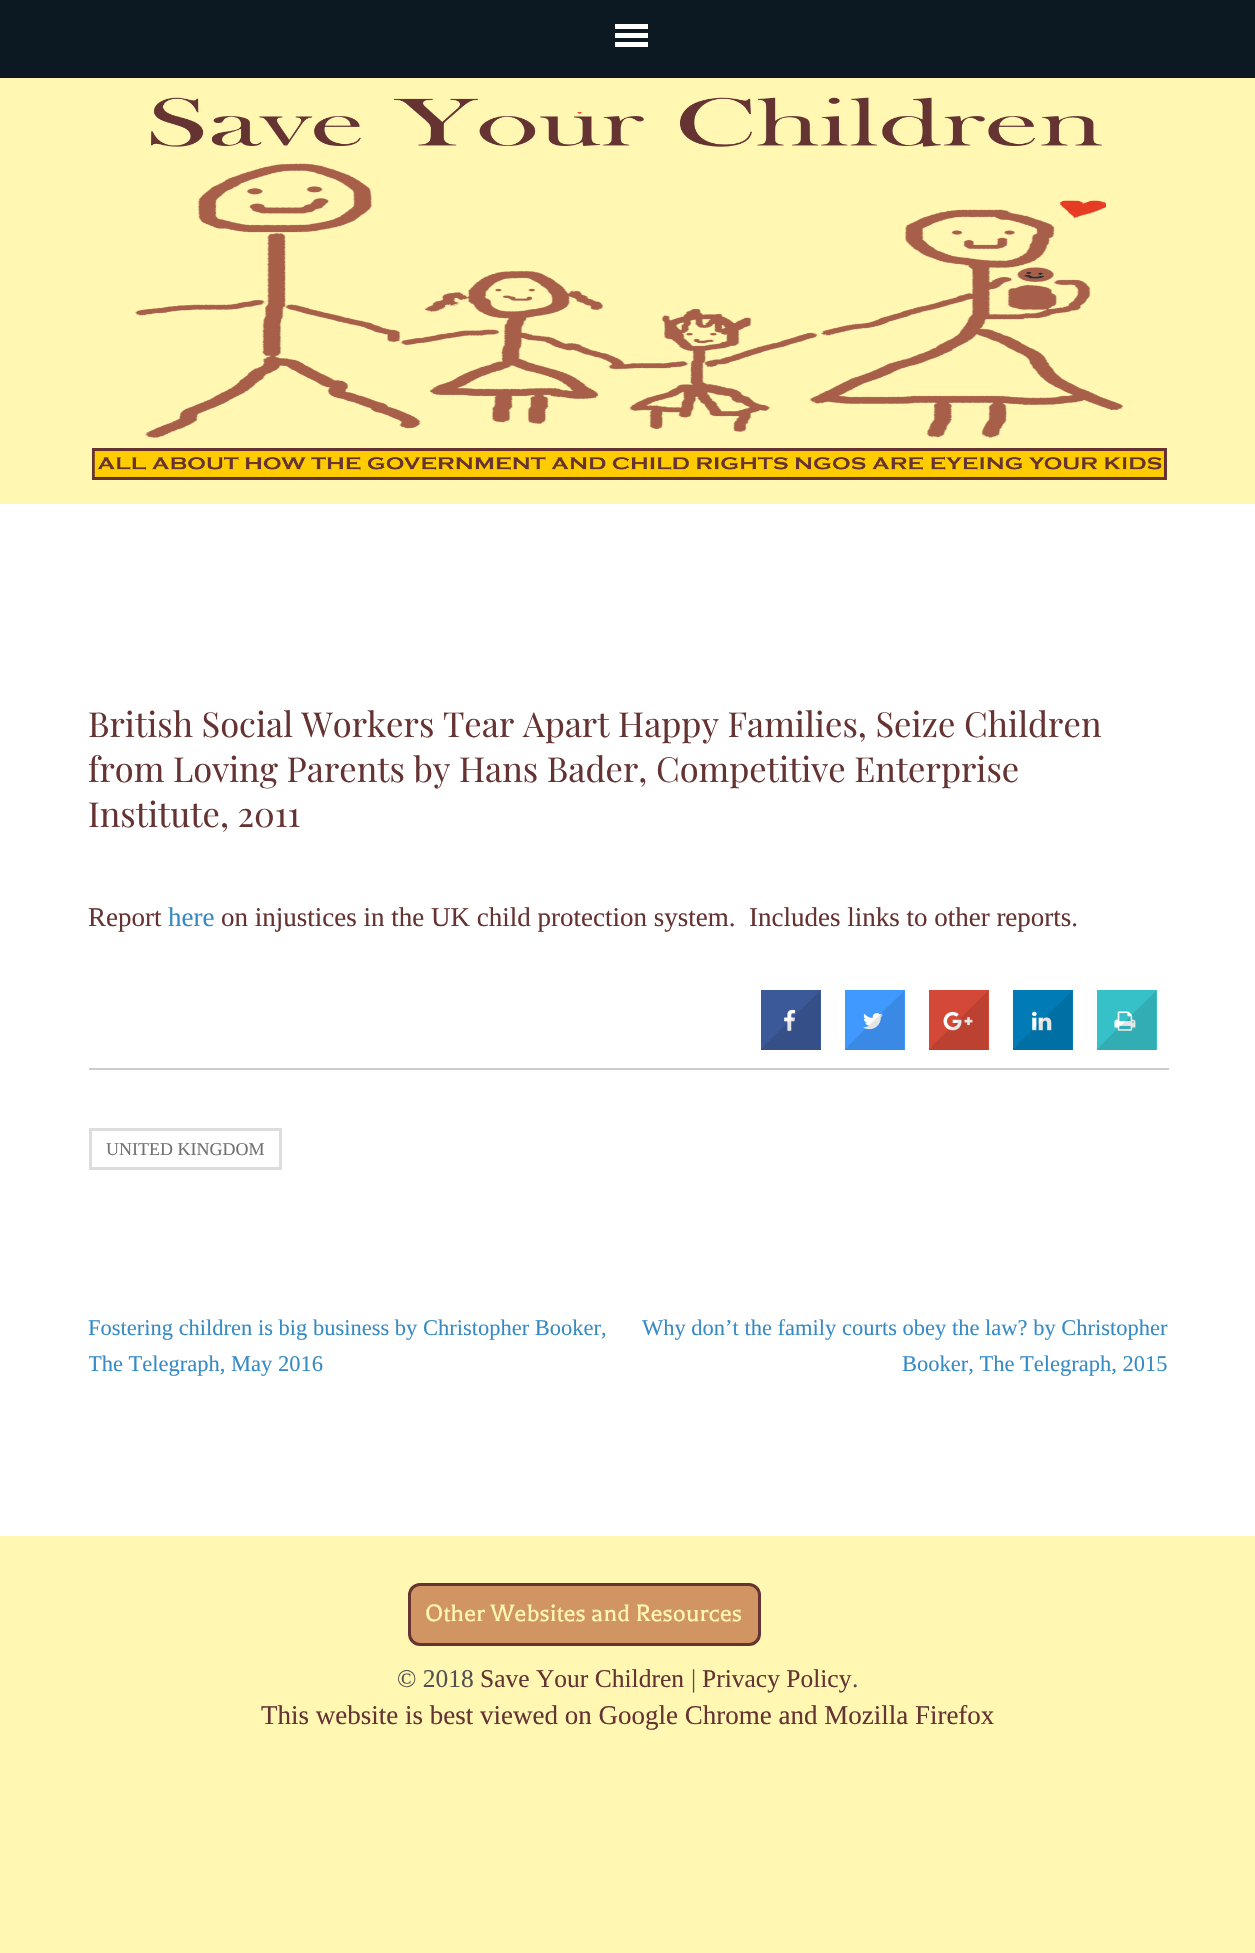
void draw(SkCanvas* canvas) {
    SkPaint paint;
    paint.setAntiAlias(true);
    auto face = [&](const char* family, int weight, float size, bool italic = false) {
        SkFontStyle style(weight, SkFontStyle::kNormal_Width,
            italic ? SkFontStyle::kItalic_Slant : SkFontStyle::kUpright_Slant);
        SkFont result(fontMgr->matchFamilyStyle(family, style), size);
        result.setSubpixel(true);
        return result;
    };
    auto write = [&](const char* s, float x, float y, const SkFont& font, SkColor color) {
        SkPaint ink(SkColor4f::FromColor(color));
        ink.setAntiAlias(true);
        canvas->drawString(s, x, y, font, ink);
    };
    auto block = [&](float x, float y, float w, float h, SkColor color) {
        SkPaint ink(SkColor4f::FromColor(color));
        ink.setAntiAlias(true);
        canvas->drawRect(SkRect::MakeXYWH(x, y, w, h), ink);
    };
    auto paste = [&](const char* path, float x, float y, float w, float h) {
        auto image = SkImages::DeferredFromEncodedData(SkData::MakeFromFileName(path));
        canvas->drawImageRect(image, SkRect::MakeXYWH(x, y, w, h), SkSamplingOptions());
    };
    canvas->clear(SkColorSetRGB(255, 247, 178));
    block(0, 0, 1255, 78, SkColorSetRGB(12, 25, 35));
    block(615, 24, 33, 5, SK_ColorWHITE);
    block(615, 33, 33, 5, SK_ColorWHITE);
    block(615, 42, 33, 5, SK_ColorWHITE);
    paste("pic1.png", 92, 97, 1075, 383);
    block(0, 504, 1255, 1032, SK_ColorWHITE);
    auto kFont1 = face("Playfair Display", 400, 34.5f);
    write("British Social Workers Tear Apart Happy Families, Seize Children", 88, 737, kFont1, SkColorSetRGB(102, 51, 51));
    write("from Loving Parents by Hans Bader, Competitive Enterprise", 88, 782, kFont1, SkColorSetRGB(102, 51, 51));
    write("Institute, 2011", 88, 827, kFont1, SkColorSetRGB(102, 51, 51));
    auto kFont2 = face("Liberation Serif", 400, 27);
    write("Report", 88, 926, kFont2, SkColorSetRGB(102, 51, 51));
    write("here", 168, 926, kFont2, SkColorSetRGB(55, 139, 197));
    write("on injustices in the UK child protection system.  Includes links to other reports.", 221, 926, kFont2, SkColorSetRGB(102, 51, 51));
    block(761, 990, 60, 60, SkColorSetRGB(59, 89, 152));
    paint.setColor(SkColorSetRGB(53, 80, 137));
    canvas->drawPath(SkPathBuilder().moveTo(820, 990).lineTo(820, 1050).lineTo(818, 1047).lineTo(818, 993).close().detach(), paint);
    paint.setColor(SkColorSetARGB(26, 0, 0, 0));
    canvas->drawPath(SkPathBuilder().moveTo(820, 1050).lineTo(760, 1050).lineTo(764, 1047).lineTo(818, 1047).close().detach(), paint);
    paste("pic2.png", 784, 1009, 12, 22);
    canvas->save();
    canvas->clipRect(SkRect::MakeXYWH(764, 993, 54, 54));
    canvas->drawPath(SkPathBuilder().moveTo(820, 991).lineTo(849, 1020).lineTo(790, 1080).lineTo(760, 1050).close().detach(), paint);
    canvas->restore();
    block(845, 990, 60, 60, SkColorSetRGB(64, 153, 255));
    paint.setColor(SkColorSetRGB(58, 138, 230));
    canvas->drawPath(SkPathBuilder().moveTo(904, 990).lineTo(904, 1050).lineTo(902, 1047).lineTo(902, 993).close().detach(), paint);
    paint.setColor(SkColorSetARGB(26, 0, 0, 0));
    canvas->drawPath(SkPathBuilder().moveTo(904, 1050).lineTo(844, 1050).lineTo(848, 1047).lineTo(902, 1047).close().detach(), paint);
    paste("pic3.png", 863, 1013, 20, 17);
    canvas->save();
    canvas->clipRect(SkRect::MakeXYWH(848, 993, 54, 54));
    canvas->drawPath(SkPathBuilder().moveTo(904, 991).lineTo(933, 1020).lineTo(874, 1080).lineTo(844, 1050).close().detach(), paint);
    canvas->restore();
    block(929, 990, 60, 60, SkColorSetRGB(211, 72, 54));
    paint.setColor(SkColorSetRGB(190, 65, 49));
    canvas->drawPath(SkPathBuilder().moveTo(988, 990).lineTo(988, 1050).lineTo(986, 1047).lineTo(986, 993).close().detach(), paint);
    paint.setColor(SkColorSetARGB(26, 0, 0, 0));
    canvas->drawPath(SkPathBuilder().moveTo(988, 1050).lineTo(928, 1050).lineTo(932, 1047).lineTo(986, 1047).close().detach(), paint);
    paste("pic4.png", 943, 1011, 30, 20);
    canvas->save();
    canvas->clipRect(SkRect::MakeXYWH(932, 993, 54, 54));
    canvas->drawPath(SkPathBuilder().moveTo(988, 991).lineTo(1017, 1020).lineTo(958, 1080).lineTo(928, 1050).close().detach(), paint);
    canvas->restore();
    block(1013, 990, 60, 60, SkColorSetRGB(0, 123, 182));
    paint.setColor(SkColorSetRGB(0, 111, 164));
    canvas->drawPath(SkPathBuilder().moveTo(1072, 990).lineTo(1072, 1050).lineTo(1070, 1047).lineTo(1070, 993).close().detach(), paint);
    paint.setColor(SkColorSetARGB(26, 0, 0, 0));
    canvas->drawPath(SkPathBuilder().moveTo(1072, 1050).lineTo(1012, 1050).lineTo(1016, 1047).lineTo(1070, 1047).close().detach(), paint);
    paste("pic5.png", 1032, 1011, 20, 20);
    canvas->save();
    canvas->clipRect(SkRect::MakeXYWH(1016, 993, 54, 54));
    canvas->drawPath(SkPathBuilder().moveTo(1072, 991).lineTo(1101, 1020).lineTo(1042, 1080).lineTo(1012, 1050).close().detach(), paint);
    canvas->restore();
    block(1097, 990, 60, 60, SkColorSetRGB(54, 193, 200));
    paint.setColor(SkColorSetRGB(49, 174, 180));
    canvas->drawPath(SkPathBuilder().moveTo(1156, 990).lineTo(1156, 1050).lineTo(1154, 1047).lineTo(1154, 993).close().detach(), paint);
    paint.setColor(SkColorSetARGB(26, 0, 0, 0));
    canvas->drawPath(SkPathBuilder().moveTo(1156, 1050).lineTo(1096, 1050).lineTo(1100, 1047).lineTo(1154, 1047).close().detach(), paint);
    paste("pic6.png", 1114, 1011, 22, 20);
    canvas->save();
    canvas->clipRect(SkRect::MakeXYWH(1100, 993, 54, 54));
    canvas->drawPath(SkPathBuilder().moveTo(1156, 991).lineTo(1185, 1020).lineTo(1126, 1080).lineTo(1096, 1050).close().detach(), paint);
    canvas->restore();
    block(89, 1068, 1080, 2, SkColorSetRGB(204, 204, 204));
    paint.setStyle(SkPaint::kStroke_Style);
    paint.setStrokeWidth(3);
    paint.setColor(SkColorSetRGB(221, 221, 221));
    canvas->drawRect(SkRect::MakeXYWH(90.5f, 1129.5f, 190, 39), paint);
    auto kFont3 = face("Liberation Serif", 400, 18);
    write("UNITED KINGDOM", 106, 1155, kFont3, SkColorSetRGB(113, 113, 113));
    auto kFont4 = face("Liberation Serif", 400, 22.5f);
    write("Fostering children is big business by Christopher Booker,", 88, 1335, kFont4, SkColorSetRGB(55, 139, 197));
    canvas->save();
    canvas->clipRect(SkRect::MakeXYWH(89, 1310, 1080, 72));
    write("The Telegraph, May 2016", 88, 1371, kFont4, SkColorSetRGB(55, 139, 197));
    canvas->restore();
    write("Why don’t the family courts obey the law? by Christopher", 642, 1335, kFont4, SkColorSetRGB(55, 139, 197));
    write("Booker, The Telegraph, 2015", 902, 1371, kFont4, SkColorSetRGB(55, 139, 197));
    paint.setStyle(SkPaint::kFill_Style);
    paint.setColor(SkColorSetRGB(209, 149, 99));
    canvas->drawRoundRect(SkRect::MakeXYWH(409.5f, 1584.5f, 350, 60), 10.5f, 10.5f, paint);
    paint.setStyle(SkPaint::kStroke_Style);
    paint.setColor(SkColorSetRGB(102, 51, 51));
    canvas->drawRoundRect(SkRect::MakeXYWH(409.5f, 1584.5f, 350, 60), 10.5f, 10.5f, paint);
    auto kFont5 = face("Balthazar", 400, 27);
    write("Other Websites and Resources", 425, 1621, kFont5, SkColorSetRGB(255, 247, 178));
    auto kFont6 = face("Liberation Serif", 400, 25.5f);
    write("© 2018", 397, 1687, kFont6, SkColorSetRGB(82, 82, 82));
    write("Save Your Children", 480, 1687, kFont6, SkColorSetRGB(102, 51, 51));
    write("|", 691, 1687, kFont6, SkColorSetRGB(82, 82, 82));
    write("Privacy Policy", 702, 1687, kFont6, SkColorSetRGB(102, 51, 51));
    write(".", 852, 1687, kFont6, SkColorSetRGB(82, 82, 82));
    write("This website is best viewed on Google Chrome and Mozilla Firefox", 261, 1724, kFont2, SkColorSetRGB(102, 51, 51));
}
